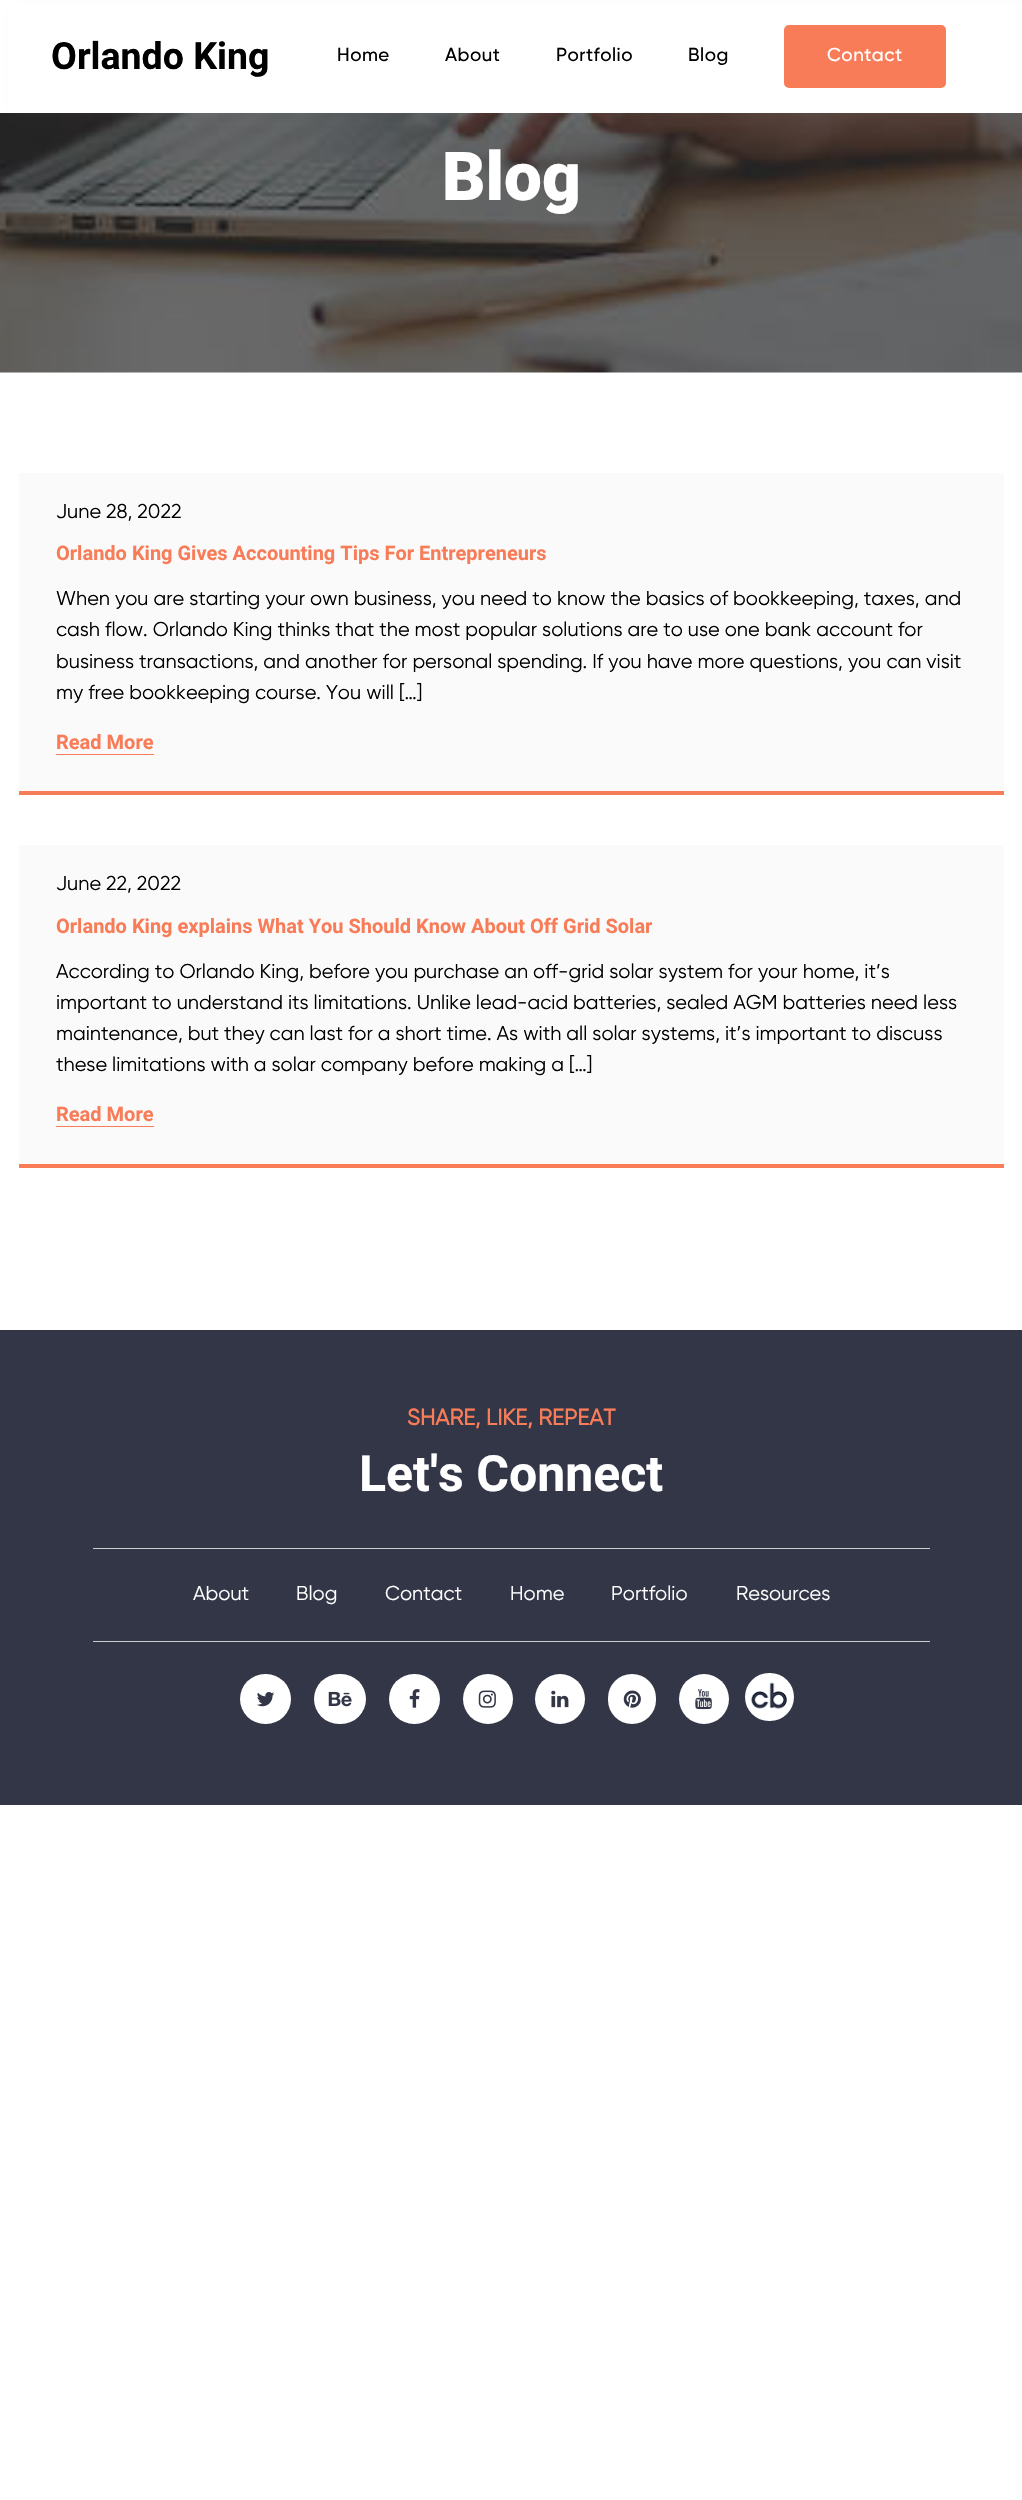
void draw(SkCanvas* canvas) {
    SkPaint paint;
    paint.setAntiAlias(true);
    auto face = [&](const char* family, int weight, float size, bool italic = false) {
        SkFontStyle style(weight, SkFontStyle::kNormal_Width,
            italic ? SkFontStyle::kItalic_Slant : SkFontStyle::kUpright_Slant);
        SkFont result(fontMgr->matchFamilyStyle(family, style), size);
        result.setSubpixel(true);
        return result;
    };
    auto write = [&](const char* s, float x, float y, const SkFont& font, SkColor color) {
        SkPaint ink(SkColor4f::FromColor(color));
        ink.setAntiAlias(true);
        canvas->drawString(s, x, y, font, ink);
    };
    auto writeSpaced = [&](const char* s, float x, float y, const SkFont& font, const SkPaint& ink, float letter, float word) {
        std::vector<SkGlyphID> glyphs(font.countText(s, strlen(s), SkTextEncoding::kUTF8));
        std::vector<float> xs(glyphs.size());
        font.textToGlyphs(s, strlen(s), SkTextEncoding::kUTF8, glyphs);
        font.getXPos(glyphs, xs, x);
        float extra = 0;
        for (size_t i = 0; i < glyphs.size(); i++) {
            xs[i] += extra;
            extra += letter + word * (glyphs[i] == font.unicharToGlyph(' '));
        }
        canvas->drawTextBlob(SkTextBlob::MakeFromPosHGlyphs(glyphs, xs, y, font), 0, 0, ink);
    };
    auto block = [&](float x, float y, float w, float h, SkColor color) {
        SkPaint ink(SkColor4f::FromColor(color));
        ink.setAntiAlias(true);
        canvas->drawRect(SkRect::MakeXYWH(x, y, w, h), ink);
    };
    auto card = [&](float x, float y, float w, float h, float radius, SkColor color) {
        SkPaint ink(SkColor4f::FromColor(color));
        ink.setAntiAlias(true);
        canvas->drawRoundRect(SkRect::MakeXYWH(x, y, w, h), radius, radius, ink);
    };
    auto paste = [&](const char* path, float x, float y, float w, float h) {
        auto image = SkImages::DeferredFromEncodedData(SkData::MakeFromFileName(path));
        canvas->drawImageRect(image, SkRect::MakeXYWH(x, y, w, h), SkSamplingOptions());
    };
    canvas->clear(SK_ColorWHITE);
    paste("pic1.png", 0, 113, 1022, 260);
    paint.setColor(SkColorSetARGB(48, 128, 128, 128));
    paint.setMaskFilter(SkMaskFilter::MakeBlur(kNormal_SkBlurStyle, 5.5f));
    canvas->drawRect(SkRect::MakeXYWH(15, 10, 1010, 100), paint);
    paint.setMaskFilter(nullptr);
    block(8, 3, 1014, 110, SK_ColorWHITE);
    auto kFont1 = face("Roboto", 700, 37.5f);
    write("Orlando King", 51, 69, kFont1, SK_ColorBLACK);
    auto kFont2 = face("Gilroy", 500, 18.75f);
    paint.setColor(SK_ColorBLACK);
    writeSpaced("Home", 337, 61, kFont2, paint, 0.5f, 0);
    writeSpaced("About", 445, 61, kFont2, paint, 0.5f, 0);
    writeSpaced("Portfolio", 556, 61, kFont2, paint, 0.5f, 0);
    writeSpaced("Blog", 688, 61, kFont2, paint, 0.5f, 0);
    paint.setColor(SkColorSetRGB(248, 124, 88));
    canvas->drawRoundRect(SkRect::MakeXYWH(785.5f, 26.5f, 159, 60), 3.5f, 3.5f, paint);
    paint.setStyle(SkPaint::kStroke_Style);
    paint.setStrokeWidth(3);
    canvas->drawRoundRect(SkRect::MakeXYWH(785.5f, 26.5f, 159, 60), 3.5f, 3.5f, paint);
    paint.setStyle(SkPaint::kFill_Style);
    paint.setColor(SK_ColorWHITE);
    writeSpaced("Contact", 827, 61, kFont2, paint, 0.5f, 0);
    auto kFont3 = face("Roboto", 900, 67.5f);
    write("Blog", 442, 200, kFont3, SK_ColorWHITE);
    block(19, 473, 985, 318, SkColorSetRGB(250, 250, 250));
    block(19, 791, 985, 4, SkColorSetRGB(248, 124, 88));
    auto kFont4 = face("Gilroy", 400, 20);
    write("June 28, 2022", 56, 518, kFont4, SK_ColorBLACK);
    auto kFont5 = face("Roboto", 700, 20);
    write("Orlando King Gives Accounting Tips For Entrepreneurs", 56, 560, kFont5, SkColorSetRGB(248, 124, 88));
    write("When you are starting your own business, you need to know the basics of bookkeeping, taxes, and", 56, 605, kFont4, SK_ColorBLACK);
    write("cash flow. Orlando King thinks that the most popular solutions are to use one bank account for", 56, 636, kFont4, SK_ColorBLACK);
    write("business transactions, and another for personal spending. If you have more questions, you can visit", 56, 668, kFont4, SK_ColorBLACK);
    write("my free bookkeeping course. You will […]", 56, 699, kFont4, SK_ColorBLACK);
    write("Read More", 56, 749, kFont5, SkColorSetRGB(248, 124, 88));
    block(56, 754, 98, 1, SkColorSetRGB(248, 124, 88));
    block(19, 845, 985, 319, SkColorSetRGB(250, 250, 250));
    block(19, 1164, 985, 4, SkColorSetRGB(248, 124, 88));
    write("June 22, 2022", 56, 890, kFont4, SK_ColorBLACK);
    write("Orlando King explains What You Should Know About Off Grid Solar", 56, 933, kFont5, SkColorSetRGB(248, 124, 88));
    write("According to Orlando King, before you purchase an off-grid solar system for your home, it’s", 56, 978, kFont4, SK_ColorBLACK);
    write("important to understand its limitations. Unlike lead-acid batteries, sealed AGM batteries need less", 56, 1009, kFont4, SK_ColorBLACK);
    write("maintenance, but they can last for a short time. As with all solar systems, it’s important to discuss", 56, 1040, kFont4, SK_ColorBLACK);
    write("these limitations with a solar company before making a […]", 56, 1071, kFont4, SK_ColorBLACK);
    write("Read More", 56, 1121, kFont5, SkColorSetRGB(248, 124, 88));
    block(56, 1126, 98, 1, SkColorSetRGB(248, 124, 88));
    block(0, 1330, 1022, 475, SkColorSetRGB(51, 54, 71));
    auto kFont6 = face("Gilroy", 700, 22.5f);
    write("SHARE, LIKE, REPEAT", 407, 1425, kFont6, SkColorSetRGB(248, 124, 88));
    auto kFont7 = face("Roboto", 700, 50);
    write("Let's Connect", 359, 1491, kFont7, SK_ColorWHITE);
    block(93, 1548, 837, 1, SkColorSetRGB(204, 204, 204));
    block(93, 1641, 837, 1, SkColorSetRGB(204, 204, 204));
    write("About", 193, 1600, kFont4, SK_ColorWHITE);
    write("Blog", 296, 1600, kFont4, SK_ColorWHITE);
    write("Contact", 385, 1600, kFont4, SK_ColorWHITE);
    write("Home", 510, 1600, kFont4, SK_ColorWHITE);
    write("Portfolio", 611, 1600, kFont4, SK_ColorWHITE);
    write("Resources", 736, 1600, kFont4, SK_ColorWHITE);
    card(240, 1674, 51, 50, 25, SK_ColorWHITE);
    paste("pic2.png", 257, 1692, 18, 15);
    card(314, 1674, 52, 50, 25, SK_ColorWHITE);
    paste("pic3.png", 328, 1691, 24, 16);
    card(389, 1674, 51, 50, 25, SK_ColorWHITE);
    paste("pic4.png", 409, 1689, 11, 19);
    canvas->drawCircle(488, 1699, 25, paint);
    paste("pic5.png", 478, 1690, 18, 18);
    canvas->drawCircle(560, 1699, 25, paint);
    paste("pic6.png", 551, 1690, 18, 18);
    card(608, 1674, 48, 50, 24, SK_ColorWHITE);
    paste("pic7.png", 623, 1690, 18, 18);
    canvas->drawCircle(704, 1699, 25, paint);
    paste("pic8.png", 695, 1689, 17, 21);
    card(745, 1673, 49, 48, 24, SK_ColorWHITE);
    paste("pic9.png", 750, 1682, 37, 27);
}
